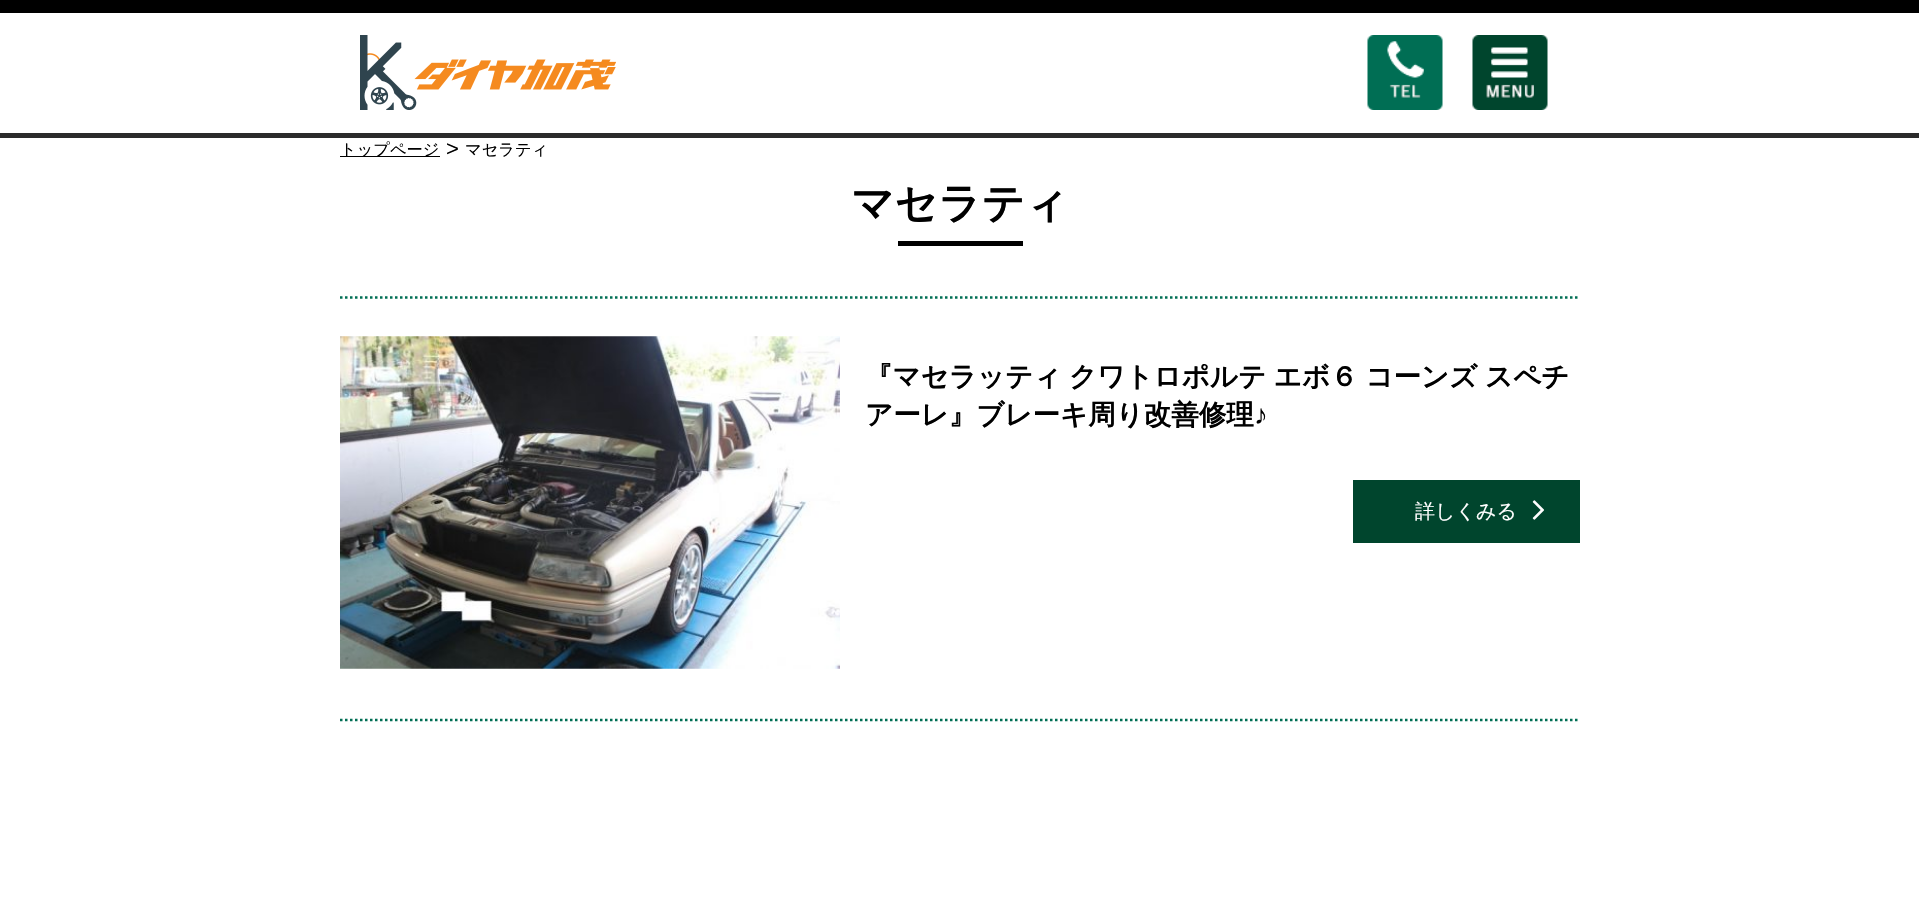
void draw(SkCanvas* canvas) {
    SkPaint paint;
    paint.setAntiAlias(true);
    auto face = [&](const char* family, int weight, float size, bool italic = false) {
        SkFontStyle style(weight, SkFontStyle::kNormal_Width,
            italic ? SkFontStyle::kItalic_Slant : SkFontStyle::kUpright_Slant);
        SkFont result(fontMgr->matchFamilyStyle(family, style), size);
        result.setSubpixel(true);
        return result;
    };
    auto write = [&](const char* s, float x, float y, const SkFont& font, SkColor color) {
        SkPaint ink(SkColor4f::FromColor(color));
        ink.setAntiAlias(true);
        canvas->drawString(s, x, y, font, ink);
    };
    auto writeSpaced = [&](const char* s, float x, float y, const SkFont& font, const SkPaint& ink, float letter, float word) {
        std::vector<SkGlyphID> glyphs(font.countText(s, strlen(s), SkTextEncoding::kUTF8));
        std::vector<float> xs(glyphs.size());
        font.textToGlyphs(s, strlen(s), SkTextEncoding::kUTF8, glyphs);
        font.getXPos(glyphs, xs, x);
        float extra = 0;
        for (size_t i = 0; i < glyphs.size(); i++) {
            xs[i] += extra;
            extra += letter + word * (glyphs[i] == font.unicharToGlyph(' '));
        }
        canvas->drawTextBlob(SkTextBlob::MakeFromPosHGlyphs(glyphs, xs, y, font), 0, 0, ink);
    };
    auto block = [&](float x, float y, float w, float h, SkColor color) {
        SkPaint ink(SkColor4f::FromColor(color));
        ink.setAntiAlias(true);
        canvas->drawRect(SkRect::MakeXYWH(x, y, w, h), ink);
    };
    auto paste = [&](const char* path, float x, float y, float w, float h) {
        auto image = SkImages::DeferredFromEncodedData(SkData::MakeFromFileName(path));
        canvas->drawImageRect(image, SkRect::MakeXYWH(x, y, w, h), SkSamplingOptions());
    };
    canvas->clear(SK_ColorWHITE);
    block(0, 0, 1919, 13, SK_ColorBLACK);
    block(0, 133, 1919, 5, SkColorSetRGB(43, 43, 43));
    paste("pic1.png", 360, 35, 256, 75);
    paste("pic2.png", 1367, 35, 76, 75);
    paste("pic3.png", 1472, 35, 76, 75);
    block(340, 156, 100, 1, SK_ColorBLACK);
    auto kFont1 = face("WenQuanYi Zen Hei", 500, 16.25f);
    write("トップページ", 340, 155, kFont1, SK_ColorBLACK);
    auto kFont2 = face("Liberation Sans", 400, 22);
    write(">", 446, 156, kFont2, SK_ColorBLACK);
    write("マセラティ", 465, 155, kFont1, SK_ColorBLACK);
    auto kFont3 = face("WenQuanYi Zen Hei", 700, 42.5f);
    write("マセラティ", 851, 218, kFont3, SK_ColorBLACK);
    block(898, 241, 125, 5, SK_ColorBLACK);
    paint.setStyle(SkPaint::kStroke_Style);
    paint.setStrokeWidth(2.5f);
    paint.setColor(SkColorSetRGB(0, 110, 84));
    paint.setPathEffect(SkDashPathEffect::Make({{2.5f, 2.5f}}, 0));
    canvas->drawPath(SkPathBuilder().moveTo(340, 297.5f).lineTo(1580, 297.5f).detach(), paint);
    paint.setPathEffect(nullptr);
    paint.setPathEffect(SkDashPathEffect::Make({{2.5f, 2.5f}}, 0));
    canvas->drawPath(SkPathBuilder().moveTo(340, 720).lineTo(1580, 720).detach(), paint);
    paint.setPathEffect(nullptr);
    paste("pic4.png", 340, 336, 500, 333);
    auto kFont4 = face("WenQuanYi Zen Hei", 700, 27.5f);
    paint.setStyle(SkPaint::kFill_Style);
    paint.setColor(SK_ColorBLACK);
    writeSpaced("『マセラッティ クワトロポルテ エボ６ コーンズ スペチ", 865, 386, kFont4, paint, 0, -0.5f);
    write("アーレ』ブレーキ周り改善修理", 865, 424, kFont4, SK_ColorBLACK);
    auto kFont5 = face("Liberation Sans", 700, 27.5f);
    write("♪", 1254, 424, kFont5, SK_ColorBLACK);
    block(1353, 480, 227, 63, SkColorSetRGB(0, 69, 45));
    auto kFont6 = face("WenQuanYi Zen Hei", 500, 20);
    write("詳しくみる", 1415, 518, kFont6, SK_ColorWHITE);
    paste("pic5.png", 1532, 500, 12, 20);
}
